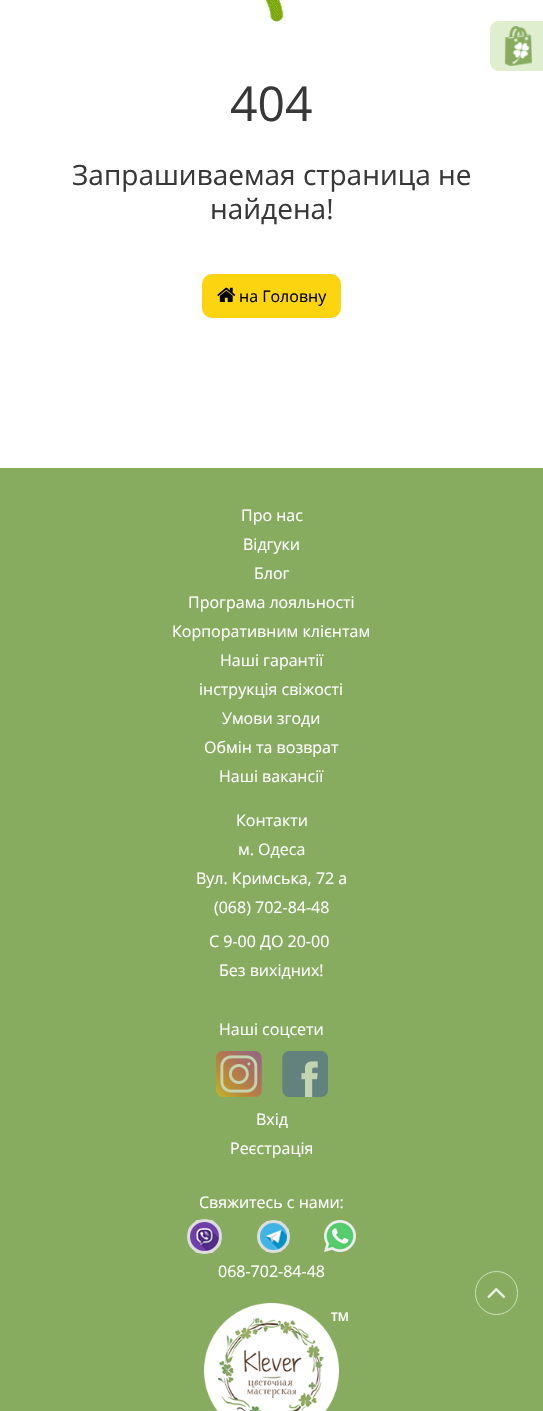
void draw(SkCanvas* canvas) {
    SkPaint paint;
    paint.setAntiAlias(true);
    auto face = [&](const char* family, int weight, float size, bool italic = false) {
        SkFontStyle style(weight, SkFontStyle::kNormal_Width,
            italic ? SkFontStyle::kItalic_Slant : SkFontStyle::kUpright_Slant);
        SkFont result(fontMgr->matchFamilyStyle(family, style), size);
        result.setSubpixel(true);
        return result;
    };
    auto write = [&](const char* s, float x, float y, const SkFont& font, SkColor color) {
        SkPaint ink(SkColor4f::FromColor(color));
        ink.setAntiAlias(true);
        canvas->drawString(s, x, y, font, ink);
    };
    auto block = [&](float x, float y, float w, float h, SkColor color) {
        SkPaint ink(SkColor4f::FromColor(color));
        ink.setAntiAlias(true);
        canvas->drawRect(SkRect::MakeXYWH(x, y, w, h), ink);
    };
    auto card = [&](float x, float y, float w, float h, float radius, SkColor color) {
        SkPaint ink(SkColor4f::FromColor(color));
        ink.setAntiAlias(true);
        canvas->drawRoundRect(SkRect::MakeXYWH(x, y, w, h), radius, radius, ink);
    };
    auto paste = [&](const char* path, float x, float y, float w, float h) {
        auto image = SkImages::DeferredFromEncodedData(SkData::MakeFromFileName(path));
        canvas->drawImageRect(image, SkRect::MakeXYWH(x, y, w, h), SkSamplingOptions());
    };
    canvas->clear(SK_ColorWHITE);
    paint.setColor(SkColorSetRGB(224, 238, 208));
    canvas->drawPath(SkPathBuilder().moveTo(499, 20.5f).lineTo(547.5f, 20.5f).lineTo(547.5f, 71.5f).lineTo(499, 71.5f).cubicTo(494, 71.5f, 489.5f, 67, 489.5f, 62).lineTo(489.5f, 30).cubicTo(489.5f, 25, 494, 20.5f, 499, 20.5f).close().detach(), paint);
    paint.setStyle(SkPaint::kStroke_Style);
    paint.setStrokeWidth(1);
    paint.setColor(SK_ColorWHITE);
    canvas->drawPath(SkPathBuilder().moveTo(499, 20.5f).lineTo(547.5f, 20.5f).lineTo(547.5f, 71.5f).lineTo(499, 71.5f).cubicTo(494, 71.5f, 489.5f, 67, 489.5f, 62).lineTo(489.5f, 30).cubicTo(489.5f, 25, 494, 20.5f, 499, 20.5f).close().detach(), paint);
    paste("pic1.png", 504, 26, 28, 40);
    paste("pic2.png", 264, 0, 22, 24);
    auto kFont1 = face("Open Sans", 400, 48);
    write("404", 230, 121, kFont1, SkColorSetRGB(56, 56, 56));
    auto kFont2 = face("Open Sans", 400, 28);
    write("Запрашиваемая страница не", 72, 185, kFont2, SkColorSetRGB(56, 56, 56));
    write("найдена!", 210, 219, kFont2, SkColorSetRGB(56, 56, 56));
    card(202, 274, 139, 44, 10, SkColorSetRGB(252, 212, 15));
    paste("pic3.png", 217, 287, 19, 15);
    auto kFont3 = face("Open Sans", 400, 16);
    write("на Головну", 239, 302, kFont3, SK_ColorBLACK);
    block(0, 468, 543, 943, SkColorSetRGB(135, 171, 95));
    write("Про нас", 241, 521, kFont3, SK_ColorWHITE);
    write("Відгуки", 243, 550, kFont3, SK_ColorWHITE);
    write("Блог", 254, 579, kFont3, SK_ColorWHITE);
    write("Програма лояльності", 188, 608, kFont3, SK_ColorWHITE);
    write("Корпоративним клієнтам", 172, 637, kFont3, SK_ColorWHITE);
    write("Наші гарантії", 220, 666, kFont3, SK_ColorWHITE);
    write("інструкція свіжості", 199, 695, kFont3, SK_ColorWHITE);
    write("Умови згоди", 222, 724, kFont3, SK_ColorWHITE);
    write("Обмін та возврат", 204, 753, kFont3, SK_ColorWHITE);
    write("Наші вакансії", 219, 782, kFont3, SK_ColorWHITE);
    write("Контакти", 236, 826, kFont3, SK_ColorWHITE);
    write("м. Одеса", 238, 855, kFont3, SK_ColorWHITE);
    write("Вул. Кримська, 72 а", 196, 884, kFont3, SK_ColorWHITE);
    write("(068) 702-84-48", 214, 913, kFont3, SK_ColorWHITE);
    write("С 9-00 ДО 20-00", 209, 947, kFont3, SK_ColorWHITE);
    write("Без вихідних!", 219, 976, kFont3, SK_ColorWHITE);
    write("Наші соцсети", 219, 1035, kFont3, SK_ColorWHITE);
    paste("pic4.png", 216, 1051, 46, 46);
    paste("pic5.png", 282, 1051, 46, 46);
    write("Вхід", 256, 1125, kFont3, SK_ColorWHITE);
    write("Реєстрація", 230, 1154, kFont3, SK_ColorWHITE);
    write("Свяжитесь с нами:", 199, 1208, kFont3, SK_ColorWHITE);
    paste("pic6.png", 187, 1219, 35, 35);
    paste("pic7.png", 257, 1220, 33, 33);
    paste("pic8.png", 324, 1220, 32, 32);
    write("068-702-84-48", 218, 1277, kFont3, SK_ColorWHITE);
    paste("pic9.png", 204, 1303, 135, 108);
    auto kFont4 = face("Open Sans", 600, 12);
    write("TM", 331, 1321, kFont4, SK_ColorWHITE);
    paint.setColor(SkColorSetRGB(206, 225, 185));
    canvas->drawRoundRect(SkRect::MakeXYWH(475.5f, 1271.5f, 42, 43), 21, 21, paint);
    paste("pic10.png", 487, 1287, 19, 12);
}
